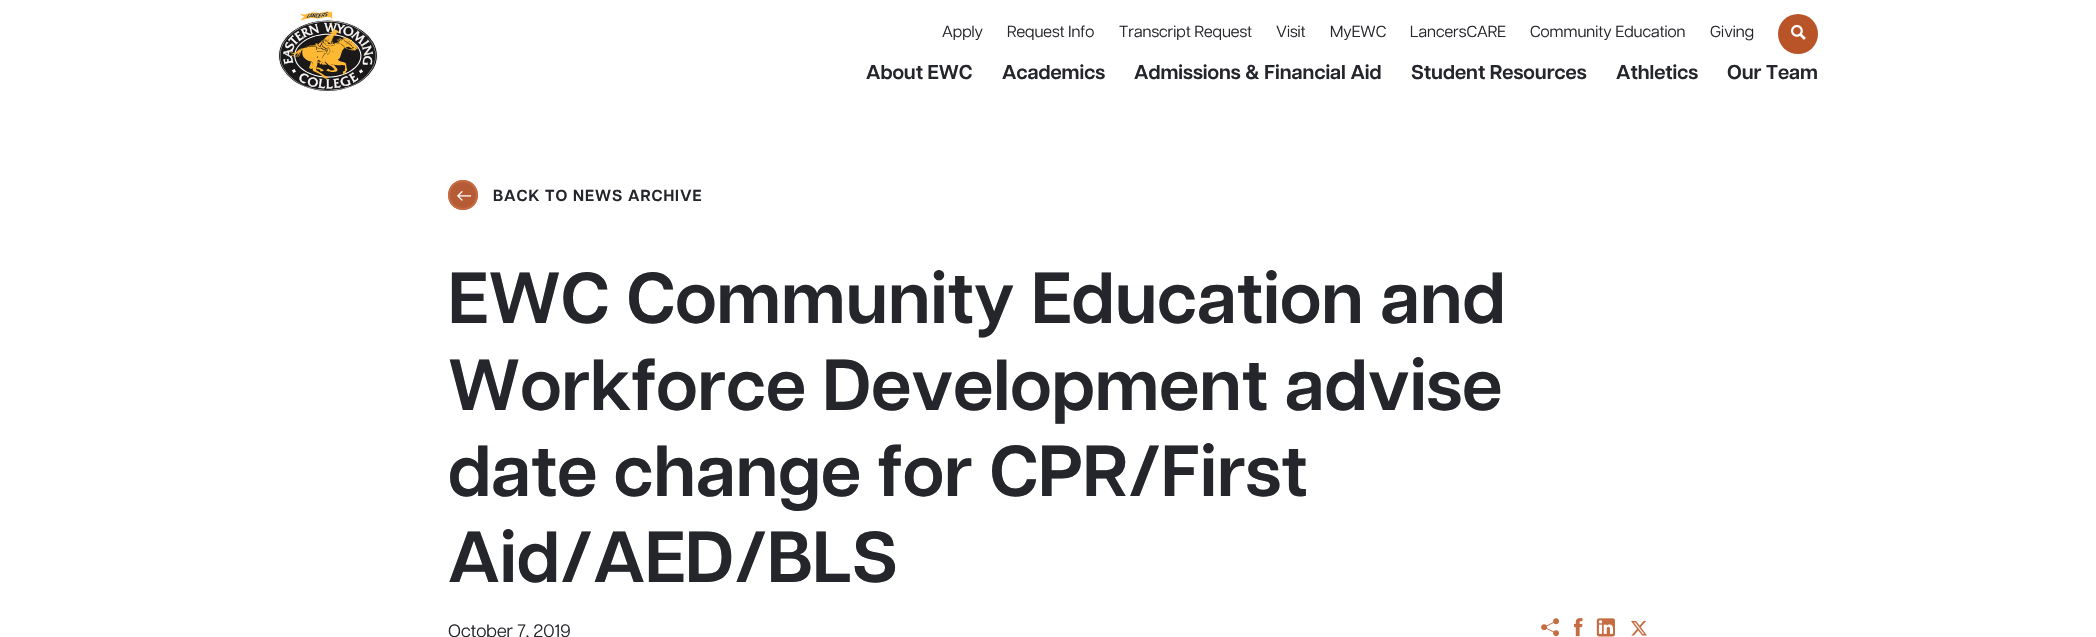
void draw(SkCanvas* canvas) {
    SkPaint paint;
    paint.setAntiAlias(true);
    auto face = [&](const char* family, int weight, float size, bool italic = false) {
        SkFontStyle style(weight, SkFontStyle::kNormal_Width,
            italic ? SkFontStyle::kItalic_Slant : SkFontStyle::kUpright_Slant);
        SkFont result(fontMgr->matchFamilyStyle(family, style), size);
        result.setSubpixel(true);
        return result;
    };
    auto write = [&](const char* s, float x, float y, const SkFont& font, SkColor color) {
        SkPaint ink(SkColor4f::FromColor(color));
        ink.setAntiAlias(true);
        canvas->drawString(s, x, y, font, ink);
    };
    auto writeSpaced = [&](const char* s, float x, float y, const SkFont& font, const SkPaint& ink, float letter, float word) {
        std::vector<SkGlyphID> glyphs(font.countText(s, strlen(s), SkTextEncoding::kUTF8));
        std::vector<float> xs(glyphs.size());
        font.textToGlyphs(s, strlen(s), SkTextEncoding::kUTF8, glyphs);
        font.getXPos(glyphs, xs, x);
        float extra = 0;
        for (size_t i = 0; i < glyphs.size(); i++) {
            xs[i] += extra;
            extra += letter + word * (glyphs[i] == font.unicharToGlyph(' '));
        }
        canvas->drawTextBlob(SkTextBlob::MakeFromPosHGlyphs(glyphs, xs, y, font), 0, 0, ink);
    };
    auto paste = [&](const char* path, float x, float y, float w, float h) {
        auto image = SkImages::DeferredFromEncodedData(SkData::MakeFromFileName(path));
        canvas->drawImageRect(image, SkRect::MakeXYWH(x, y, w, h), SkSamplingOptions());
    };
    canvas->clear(SK_ColorWHITE);
    paste("pic1.png", 278, 10, 100, 82);
    auto kFont1 = face("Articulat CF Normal", 400, 16);
    write("Apply", 942, 37, kFont1, SkColorSetRGB(36, 38, 43));
    write("Request Info", 1007, 37, kFont1, SkColorSetRGB(36, 38, 43));
    write("Transcript Request", 1119, 37, kFont1, SkColorSetRGB(36, 38, 43));
    write("Visit", 1276, 37, kFont1, SkColorSetRGB(36, 38, 43));
    write("MyEWC", 1330, 37, kFont1, SkColorSetRGB(36, 38, 43));
    write("LancersCARE", 1410, 37, kFont1, SkColorSetRGB(36, 38, 43));
    write("Community Education", 1530, 37, kFont1, SkColorSetRGB(36, 38, 43));
    write("Giving", 1710, 37, kFont1, SkColorSetRGB(36, 38, 43));
    paint.setColor(SkColorSetRGB(185, 84, 41));
    canvas->drawCircle(1798, 34, 20, paint);
    paste("pic2.png", 1791, 24, 15, 16);
    auto kFont2 = face("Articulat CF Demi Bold", 600, 20);
    write("About EWC", 866, 79, kFont2, SkColorSetRGB(36, 38, 43));
    write("Academics", 1002, 79, kFont2, SkColorSetRGB(36, 38, 43));
    write("Admissions & Financial Aid", 1134, 79, kFont2, SkColorSetRGB(36, 38, 43));
    write("Student Resources", 1411, 79, kFont2, SkColorSetRGB(36, 38, 43));
    write("Athletics", 1616, 79, kFont2, SkColorSetRGB(36, 38, 43));
    write("Our Team", 1727, 79, kFont2, SkColorSetRGB(36, 38, 43));
    paint.setColor(SkColorSetRGB(181, 92, 54));
    canvas->drawPath(SkPathBuilder().moveTo(463, 210).cubicTo(454.5f, 210, 448, 203.5f, 448, 195).cubicTo(448, 187, 454.5f, 180, 463, 180).cubicTo(471.5f, 180, 478, 187, 478, 195).cubicTo(478, 203.5f, 471.5f, 210, 463, 210).close().detach(), paint);
    paint.setStyle(SkPaint::kStroke_Style);
    paint.setStrokeWidth(2);
    paint.setColor(SkColorSetRGB(198, 108, 66));
    canvas->drawPath(SkPathBuilder().moveTo(463, 209).cubicTo(444.5f, 209, 444.5f, 181, 463, 181).cubicTo(481.5f, 181.5f, 481.5f, 209, 463, 209).close().detach(), paint);
    paste("pic3.png", 457, 191, 14, 10);
    auto kFont3 = face("Articulat CF Demi Bold", 600, 16);
    paint.setStyle(SkPaint::kFill_Style);
    paint.setColor(SkColorSetRGB(36, 38, 43));
    writeSpaced("BACK TO NEWS ARCHIVE", 493, 201, kFont3, paint, 1, 0);
    auto kFont4 = face("Articulat CF Demi Bold", 600, 72);
    write("EWC Community Education and", 448, 323, kFont4, SkColorSetRGB(36, 38, 43));
    write("Workforce Development advise", 448, 410, kFont4, SkColorSetRGB(36, 38, 43));
    write("date change for CPR/First", 448, 496, kFont4, SkColorSetRGB(36, 38, 43));
    write("Aid/AED/BLS", 448, 582, kFont4, SkColorSetRGB(36, 38, 43));
    auto kFont5 = face("Articulat CF Normal", 400, 18);
    write("October 7, 2019", 448, 637, kFont5, SkColorSetRGB(36, 38, 43));
    paste("pic4.png", 1541, 618, 19, 19);
    paste("pic5.png", 1574, 618, 9, 19);
    paste("pic6.png", 1596, 618, 19, 19);
    paste("pic7.png", 1631, 620, 16, 16);
}
